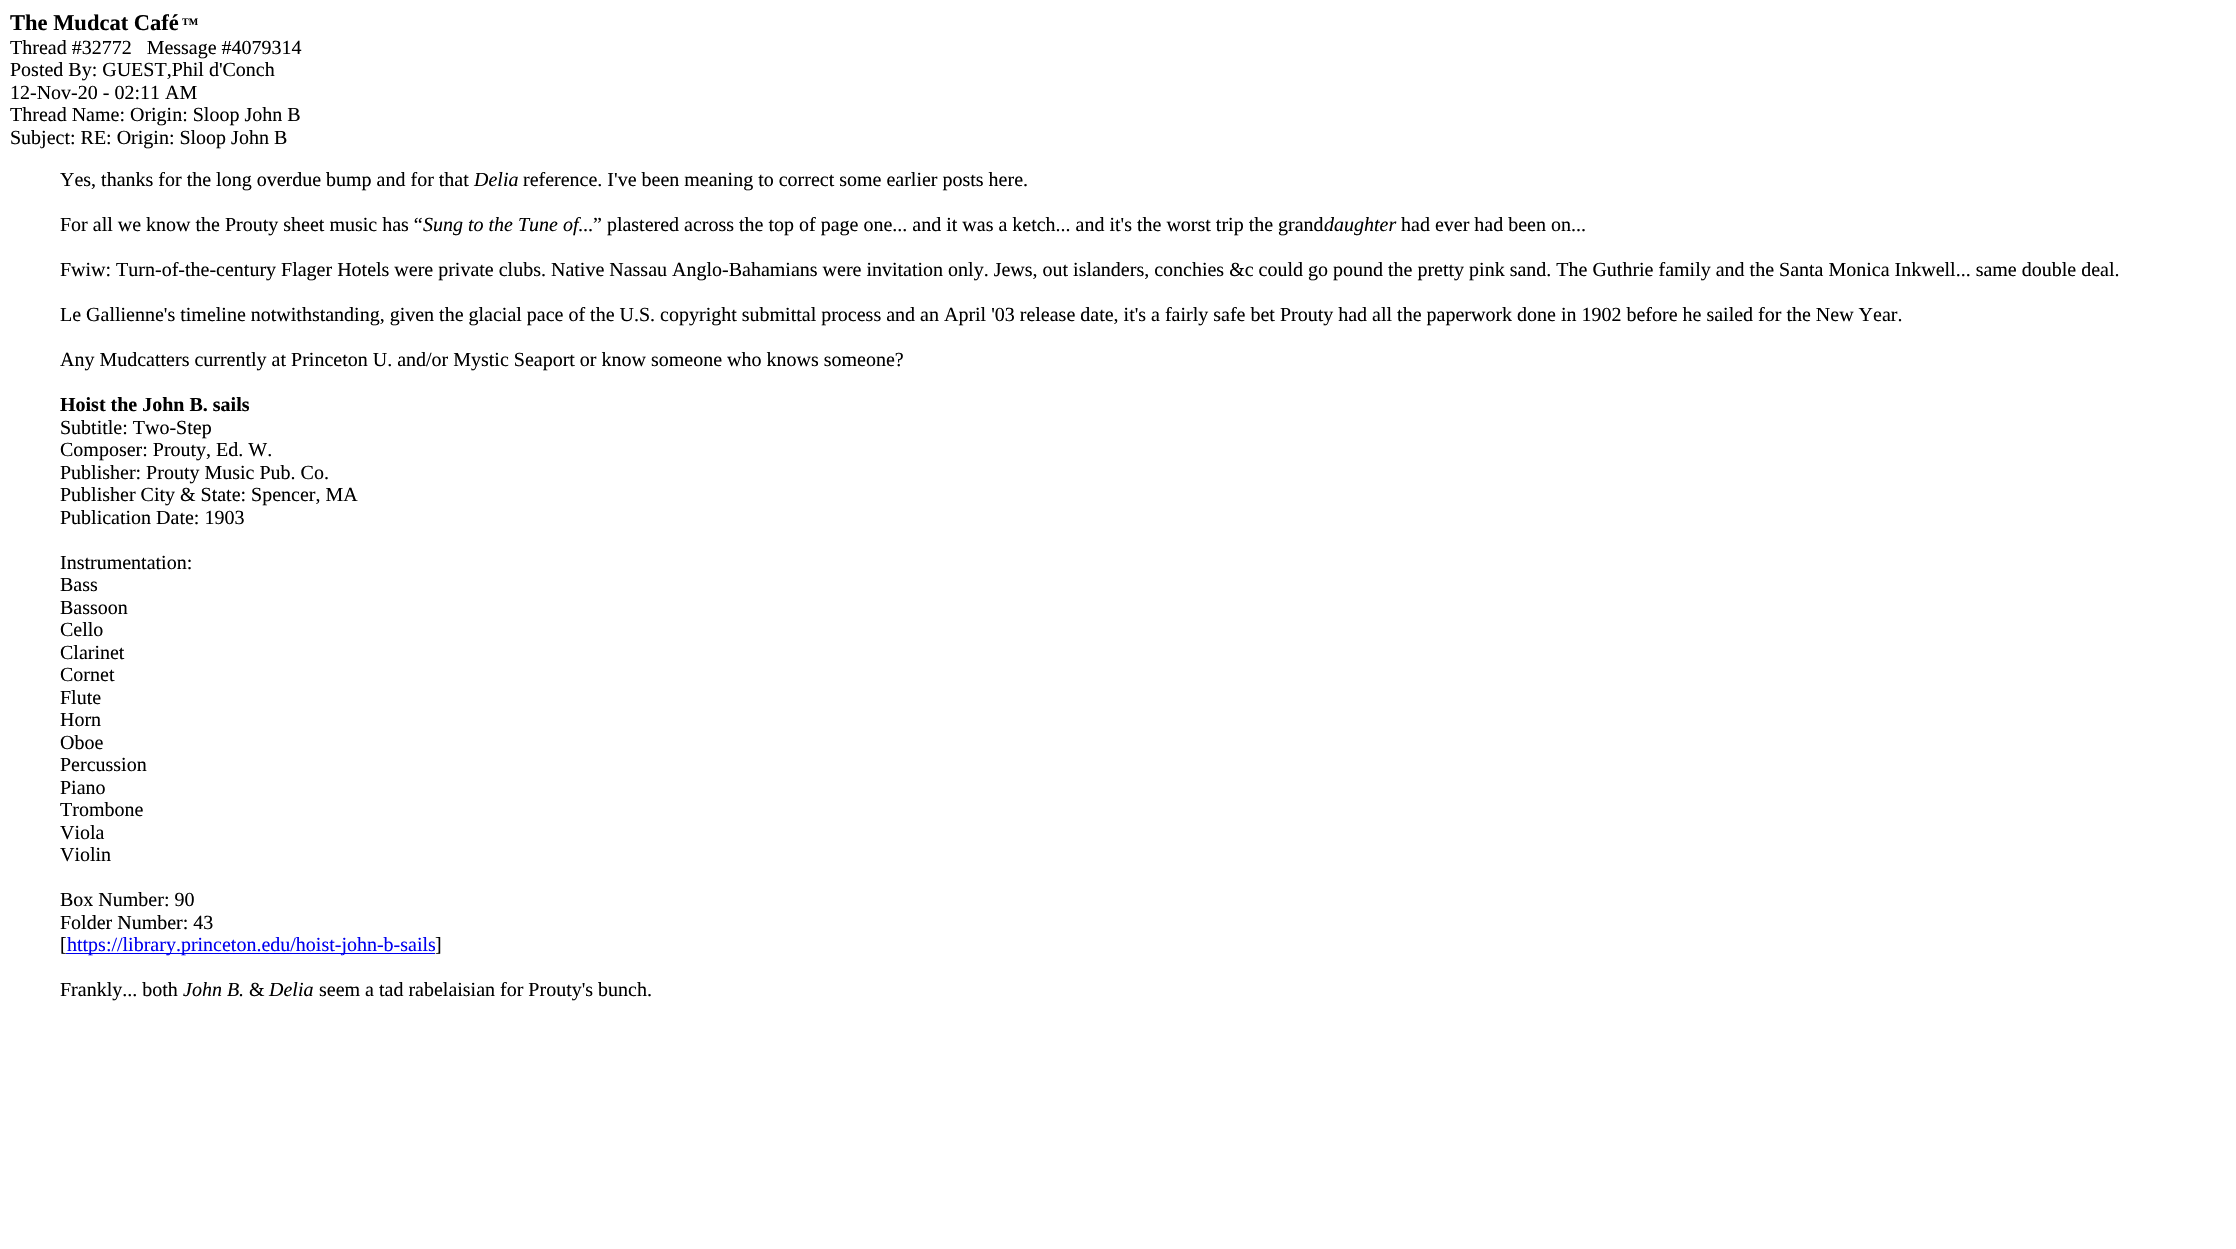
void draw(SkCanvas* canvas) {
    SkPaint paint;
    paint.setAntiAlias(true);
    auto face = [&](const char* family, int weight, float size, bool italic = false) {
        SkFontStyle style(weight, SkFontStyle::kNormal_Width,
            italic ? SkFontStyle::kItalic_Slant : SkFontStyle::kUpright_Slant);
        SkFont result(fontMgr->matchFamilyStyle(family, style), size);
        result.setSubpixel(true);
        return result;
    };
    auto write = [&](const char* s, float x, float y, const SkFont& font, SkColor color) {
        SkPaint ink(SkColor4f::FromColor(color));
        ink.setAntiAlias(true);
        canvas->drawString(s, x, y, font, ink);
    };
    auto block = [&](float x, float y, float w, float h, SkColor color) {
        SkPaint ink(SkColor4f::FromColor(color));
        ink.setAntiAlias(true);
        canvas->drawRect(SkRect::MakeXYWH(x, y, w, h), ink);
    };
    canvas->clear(SK_ColorWHITE);
    auto kFont1 = face("Liberation Serif", 700, 22.5f);
    write("The Mudcat Café", 10, 30, kFont1, SK_ColorBLACK);
    auto kFont2 = face("Liberation Serif", 700, 10);
    write("TM", 182, 25, kFont2, SK_ColorBLACK);
    auto kFont3 = face("Liberation Serif", 400, 20);
    write("Thread #32772   Message #4079314", 10, 54, kFont3, SK_ColorBLACK);
    write("Posted By: GUEST,Phil d'Conch", 10, 76, kFont3, SK_ColorBLACK);
    write("12-Nov-20 - 02:11 AM", 10, 99, kFont3, SK_ColorBLACK);
    write("Thread Name: Origin: Sloop John B", 10, 121, kFont3, SK_ColorBLACK);
    write("Subject: RE: Origin: Sloop John B", 10, 144, kFont3, SK_ColorBLACK);
    write("Yes, thanks for the long overdue bump and for that", 60, 186, kFont3, SK_ColorBLACK);
    auto kFont4 = face("Liberation Serif", 400, 20, true);
    write("Delia", 474, 186, kFont4, SK_ColorBLACK);
    write("reference. I've been meaning to correct some earlier posts here.", 523, 186, kFont3, SK_ColorBLACK);
    write("For all we know the Prouty sheet music has “", 60, 231, kFont3, SK_ColorBLACK);
    write("Sung to the Tune of...", 423, 231, kFont4, SK_ColorBLACK);
    write("” plastered across the top of page one... and it was a ketch... and it's the worst trip the grand", 593, 231, kFont3, SK_ColorBLACK);
    write("daughter", 1324, 231, kFont4, SK_ColorBLACK);
    write("had ever had been on...", 1401, 231, kFont3, SK_ColorBLACK);
    write("Fwiw: Turn-of-the-century Flager Hotels were private clubs. Native Nassau Anglo-Bahamians were invitation only. Jews, out islanders, conchies &c could go pound the pretty pink sand. The Guthrie family and the Santa Monica Inkwell... same double deal.", 60, 276, kFont3, SK_ColorBLACK);
    write("Le Gallienne's timeline notwithstanding, given the glacial pace of the U.S. copyright submittal process and an April '03 release date, it's a fairly safe bet Prouty had all the paperwork done in 1902 before he sailed for the New Year.", 60, 321, kFont3, SK_ColorBLACK);
    write("Any Mudcatters currently at Princeton U. and/or Mystic Seaport or know someone who knows someone?", 60, 366, kFont3, SK_ColorBLACK);
    auto kFont5 = face("Liberation Serif", 700, 20);
    write("Hoist the John B. sails", 60, 411, kFont5, SK_ColorBLACK);
    write("Subtitle: Two-Step", 60, 434, kFont3, SK_ColorBLACK);
    write("Composer: Prouty, Ed. W.", 60, 456, kFont3, SK_ColorBLACK);
    write("Publisher: Prouty Music Pub. Co.", 60, 479, kFont3, SK_ColorBLACK);
    write("Publisher City & State: Spencer, MA", 60, 501, kFont3, SK_ColorBLACK);
    write("Publication Date: 1903", 60, 524, kFont3, SK_ColorBLACK);
    write("Instrumentation:", 60, 569, kFont3, SK_ColorBLACK);
    write("Bass", 60, 591, kFont3, SK_ColorBLACK);
    write("Bassoon", 60, 614, kFont3, SK_ColorBLACK);
    write("Cello", 60, 636, kFont3, SK_ColorBLACK);
    write("Clarinet", 60, 659, kFont3, SK_ColorBLACK);
    write("Cornet", 60, 681, kFont3, SK_ColorBLACK);
    write("Flute", 60, 704, kFont3, SK_ColorBLACK);
    write("Horn", 60, 726, kFont3, SK_ColorBLACK);
    write("Oboe", 60, 749, kFont3, SK_ColorBLACK);
    write("Percussion", 60, 771, kFont3, SK_ColorBLACK);
    write("Piano", 60, 794, kFont3, SK_ColorBLACK);
    write("Trombone", 60, 816, kFont3, SK_ColorBLACK);
    write("Viola", 60, 839, kFont3, SK_ColorBLACK);
    write("Violin", 60, 861, kFont3, SK_ColorBLACK);
    write("Box Number: 90", 60, 906, kFont3, SK_ColorBLACK);
    write("Folder Number: 43", 60, 929, kFont3, SK_ColorBLACK);
    write("[", 60, 951, kFont3, SK_ColorBLACK);
    block(66, 953, 369, 1, SkColorSetRGB(0, 0, 238));
    write("https://library.princeton.edu/hoist-john-b-sails", 67, 951, kFont3, SkColorSetRGB(0, 0, 238));
    write("]", 435, 951, kFont3, SK_ColorBLACK);
    write("Frankly... both", 60, 996, kFont3, SK_ColorBLACK);
    write("John B.", 183, 996, kFont4, SK_ColorBLACK);
    write("&", 249, 996, kFont3, SK_ColorBLACK);
    write("Delia", 269, 996, kFont4, SK_ColorBLACK);
    write("seem a tad rabelaisian for Prouty's bunch.", 319, 996, kFont3, SK_ColorBLACK);
}
